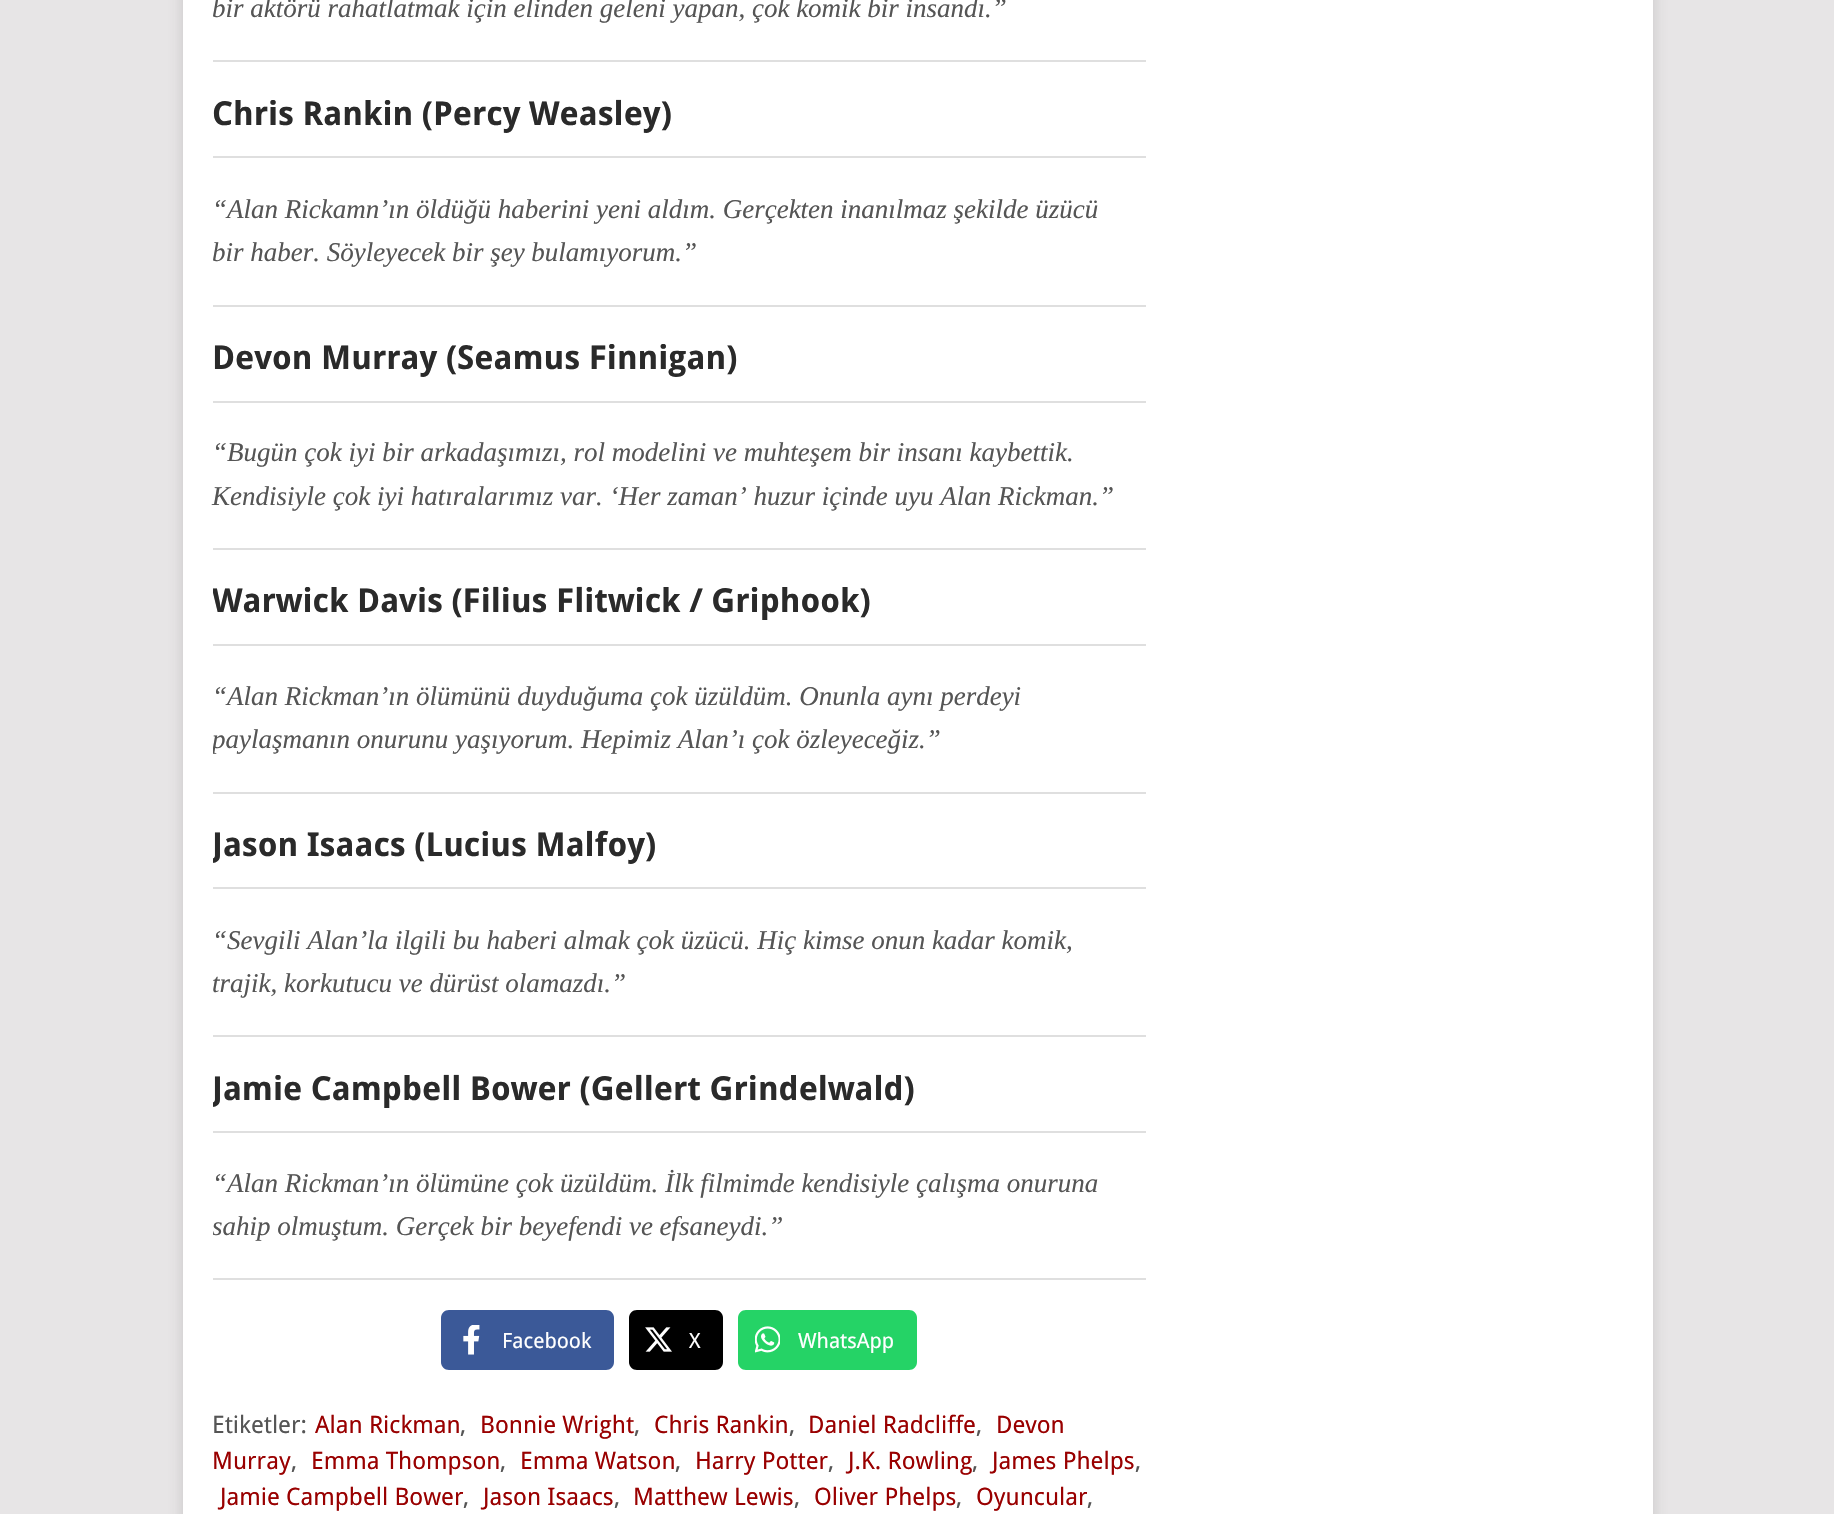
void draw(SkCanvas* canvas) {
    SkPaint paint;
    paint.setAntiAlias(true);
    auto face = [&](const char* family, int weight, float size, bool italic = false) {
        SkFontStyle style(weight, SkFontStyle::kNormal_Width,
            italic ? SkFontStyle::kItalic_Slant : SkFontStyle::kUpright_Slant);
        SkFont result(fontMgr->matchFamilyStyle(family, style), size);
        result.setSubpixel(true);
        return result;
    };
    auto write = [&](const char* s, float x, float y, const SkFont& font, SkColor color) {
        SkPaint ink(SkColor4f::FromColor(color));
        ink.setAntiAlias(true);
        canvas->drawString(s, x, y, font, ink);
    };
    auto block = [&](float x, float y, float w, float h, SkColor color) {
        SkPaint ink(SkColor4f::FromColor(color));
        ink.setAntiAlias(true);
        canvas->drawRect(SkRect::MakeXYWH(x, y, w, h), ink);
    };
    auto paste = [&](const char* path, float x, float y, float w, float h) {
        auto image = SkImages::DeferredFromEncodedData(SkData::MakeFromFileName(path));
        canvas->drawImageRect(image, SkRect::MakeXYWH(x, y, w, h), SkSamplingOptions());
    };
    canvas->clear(SkColorSetRGB(231, 229, 230));
    paint.setColor(SkColorSetARGB(43, 50, 50, 50));
    paint.setMaskFilter(SkMaskFilter::MakeBlur(kNormal_SkBlurStyle, 7.5f));
    canvas->drawRect(SkRect::MakeXYWH(183, -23, 1470, 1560), paint);
    paint.setMaskFilter(nullptr);
    block(183, 0, 1470, 1514, SK_ColorWHITE);
    block(213, 60, 933, 2, SkColorSetRGB(223, 223, 223));
    auto kFont1 = face("Liberation Serif", 400, 27, true);
    write("bir aktörü rahatlatmak için elinden geleni yapan, çok komik bir insandı.”", 212, 17, kFont1, SkColorSetRGB(85, 85, 85));
    auto kFont2 = face("Droid Sans", 700, 33);
    write("Chris Rankin (Percy Weasley)", 212, 125, kFont2, SkColorSetRGB(42, 42, 42));
    block(213, 156, 933, 2, SkColorSetRGB(223, 223, 223));
    block(213, 305, 933, 2, SkColorSetRGB(223, 223, 223));
    write("“Alan Rickamn’ın öldüğü haberini yeni aldım. Gerçekten inanılmaz şekilde üzücü", 212, 218, kFont1, SkColorSetRGB(85, 85, 85));
    write("bir haber. Söyleyecek bir şey bulamıyorum.”", 212, 261, kFont1, SkColorSetRGB(85, 85, 85));
    write("Devon Murray (Seamus Finnigan)", 212, 369, kFont2, SkColorSetRGB(42, 42, 42));
    block(213, 401, 933, 2, SkColorSetRGB(223, 223, 223));
    block(213, 548, 933, 2, SkColorSetRGB(223, 223, 223));
    write("“Bugün çok iyi bir arkadaşımızı, rol modelini ve muhteşem bir insanı kaybettik.", 212, 461, kFont1, SkColorSetRGB(85, 85, 85));
    write("Kendisiyle çok iyi hatıralarımız var. ‘Her zaman’ huzur içinde uyu Alan Rickman.”", 212, 505, kFont1, SkColorSetRGB(85, 85, 85));
    canvas->save();
    canvas->clipRect(SkRect::MakeXYWH(213, 0, 933, 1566));
    write("Warwick Davis (Filius Flitwick / Griphook)", 212, 612, kFont2, SkColorSetRGB(42, 42, 42));
    canvas->restore();
    block(213, 644, 933, 2, SkColorSetRGB(223, 223, 223));
    block(213, 792, 933, 2, SkColorSetRGB(223, 223, 223));
    write("“Alan Rickman’ın ölümünü duyduğuma çok üzüldüm. Onunla aynı perdeyi", 212, 705, kFont1, SkColorSetRGB(85, 85, 85));
    canvas->save();
    canvas->clipRect(SkRect::MakeXYWH(213, 0, 933, 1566));
    write("paylaşmanın onurunu yaşıyorum. Hepimiz Alan’ı çok özleyeceğiz.”", 212, 748, kFont1, SkColorSetRGB(85, 85, 85));
    write("Jason Isaacs (Lucius Malfoy)", 212, 856, kFont2, SkColorSetRGB(42, 42, 42));
    canvas->restore();
    block(213, 887, 933, 2, SkColorSetRGB(223, 223, 223));
    block(213, 1035, 933, 2, SkColorSetRGB(223, 223, 223));
    write("“Sevgili Alan’la ilgili bu haberi almak çok üzücü. Hiç kimse onun kadar komik,", 212, 949, kFont1, SkColorSetRGB(85, 85, 85));
    write("trajik, korkutucu ve dürüst olamazdı.”", 212, 992, kFont1, SkColorSetRGB(85, 85, 85));
    canvas->save();
    canvas->clipRect(SkRect::MakeXYWH(213, 0, 933, 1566));
    write("Jamie Campbell Bower (Gellert Grindelwald)", 212, 1100, kFont2, SkColorSetRGB(42, 42, 42));
    canvas->restore();
    block(213, 1131, 933, 2, SkColorSetRGB(223, 223, 223));
    block(213, 1278, 933, 2, SkColorSetRGB(223, 223, 223));
    write("“Alan Rickman’ın ölümüne çok üzüldüm. İlk filmimde kendisiyle çalışma onuruna", 212, 1192, kFont1, SkColorSetRGB(85, 85, 85));
    canvas->save();
    canvas->clipRect(SkRect::MakeXYWH(213, 0, 933, 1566));
    write("sahip olmuştum. Gerçek bir beyefendi ve efsaneydi.”", 212, 1235, kFont1, SkColorSetRGB(85, 85, 85));
    canvas->restore();
    paint.setColor(SkColorSetRGB(59, 89, 152));
    canvas->drawPath(SkPathBuilder().moveTo(449, 1310).lineTo(501, 1310).lineTo(501, 1370).lineTo(449, 1370).cubicTo(444.5f, 1370, 441, 1366.5f, 441, 1362).lineTo(441, 1318).cubicTo(441, 1313.5f, 444.5f, 1310, 449, 1310).close().detach(), paint);
    paste("pic1.png", 463, 1325, 17, 30);
    canvas->drawPath(SkPathBuilder().moveTo(501, 1310).lineTo(606, 1310).cubicTo(610.5f, 1310, 614, 1313.5f, 614, 1318).lineTo(614, 1362).cubicTo(614, 1366.5f, 610.5f, 1370, 606, 1370).lineTo(501, 1370).close().detach(), paint);
    auto kFont3 = face("Droid Sans", 400, 21);
    write("Facebook", 502, 1348, kFont3, SK_ColorWHITE);
    paint.setColor(SK_ColorBLACK);
    canvas->drawPath(SkPathBuilder().moveTo(637, 1310).lineTo(689, 1310).lineTo(689, 1370).lineTo(637, 1370).cubicTo(632.5f, 1370, 629, 1366.5f, 629, 1362).lineTo(629, 1318).cubicTo(629, 1313.5f, 632.5f, 1310, 637, 1310).close().detach(), paint);
    paste("pic2.png", 645, 1327, 27, 25);
    canvas->drawPath(SkPathBuilder().moveTo(689, 1310).lineTo(715, 1310).cubicTo(719.5f, 1310, 723, 1313.5f, 723, 1318).lineTo(723, 1362).cubicTo(723, 1366.5f, 719.5f, 1370, 715, 1370).lineTo(689, 1370).close().detach(), paint);
    write("X", 689, 1348, kFont3, SK_ColorWHITE);
    paint.setColor(SkColorSetRGB(37, 211, 102));
    canvas->drawPath(SkPathBuilder().moveTo(746, 1310).lineTo(798, 1310).lineTo(798, 1370).lineTo(746, 1370).cubicTo(741.5f, 1370, 738, 1366.5f, 738, 1362).lineTo(738, 1318).cubicTo(738, 1313.5f, 741.5f, 1310, 746, 1310).close().detach(), paint);
    paste("pic3.png", 755, 1326, 25, 27);
    canvas->drawPath(SkPathBuilder().moveTo(798, 1310).lineTo(909, 1310).cubicTo(913.5f, 1310, 917, 1313.5f, 917, 1318).lineTo(917, 1362).cubicTo(917, 1366.5f, 913.5f, 1370, 909, 1370).lineTo(798, 1370).close().detach(), paint);
    write("WhatsApp", 798, 1348, kFont3, SK_ColorWHITE);
    auto kFont4 = face("Droid Sans", 400, 24);
    write("Etiketler:", 212, 1433, kFont4, SkColorSetRGB(85, 85, 85));
    write("Alan Rickman", 315, 1433, kFont4, SkColorSetRGB(153, 0, 0));
    write(",", 460, 1433, kFont4, SkColorSetRGB(85, 85, 85));
    write("Bonnie Wright", 480, 1433, kFont4, SkColorSetRGB(153, 0, 0));
    write(",", 634, 1433, kFont4, SkColorSetRGB(85, 85, 85));
    write("Chris Rankin", 654, 1433, kFont4, SkColorSetRGB(153, 0, 0));
    write(",", 789, 1433, kFont4, SkColorSetRGB(85, 85, 85));
    write("Daniel Radcliffe", 808, 1433, kFont4, SkColorSetRGB(153, 0, 0));
    write(",", 976, 1433, kFont4, SkColorSetRGB(85, 85, 85));
    write("Devon", 996, 1433, kFont4, SkColorSetRGB(153, 0, 0));
    write("Murray", 212, 1469, kFont4, SkColorSetRGB(153, 0, 0));
    write(",", 291, 1469, kFont4, SkColorSetRGB(85, 85, 85));
    write("Emma Thompson", 311, 1469, kFont4, SkColorSetRGB(153, 0, 0));
    write(",", 500, 1469, kFont4, SkColorSetRGB(85, 85, 85));
    write("Emma Watson", 520, 1469, kFont4, SkColorSetRGB(153, 0, 0));
    write(",", 675, 1469, kFont4, SkColorSetRGB(85, 85, 85));
    write("Harry Potter", 695, 1469, kFont4, SkColorSetRGB(153, 0, 0));
    write(",", 828, 1469, kFont4, SkColorSetRGB(85, 85, 85));
    write("J.K. Rowling", 848, 1469, kFont4, SkColorSetRGB(153, 0, 0));
    write(",", 972, 1469, kFont4, SkColorSetRGB(85, 85, 85));
    write("James Phelps", 992, 1469, kFont4, SkColorSetRGB(153, 0, 0));
    write(",", 1135, 1469, kFont4, SkColorSetRGB(85, 85, 85));
    write("Jamie Campbell Bower", 220, 1505, kFont4, SkColorSetRGB(153, 0, 0));
    write(",", 463, 1505, kFont4, SkColorSetRGB(85, 85, 85));
    write("Jason Isaacs", 483, 1505, kFont4, SkColorSetRGB(153, 0, 0));
    write(",", 614, 1505, kFont4, SkColorSetRGB(85, 85, 85));
    write("Matthew Lewis", 633, 1505, kFont4, SkColorSetRGB(153, 0, 0));
    write(",", 794, 1505, kFont4, SkColorSetRGB(85, 85, 85));
    write("Oliver Phelps", 814, 1505, kFont4, SkColorSetRGB(153, 0, 0));
    write(",", 956, 1505, kFont4, SkColorSetRGB(85, 85, 85));
    write("Oyuncular", 976, 1505, kFont4, SkColorSetRGB(153, 0, 0));
    write(",", 1087, 1505, kFont4, SkColorSetRGB(85, 85, 85));
}
